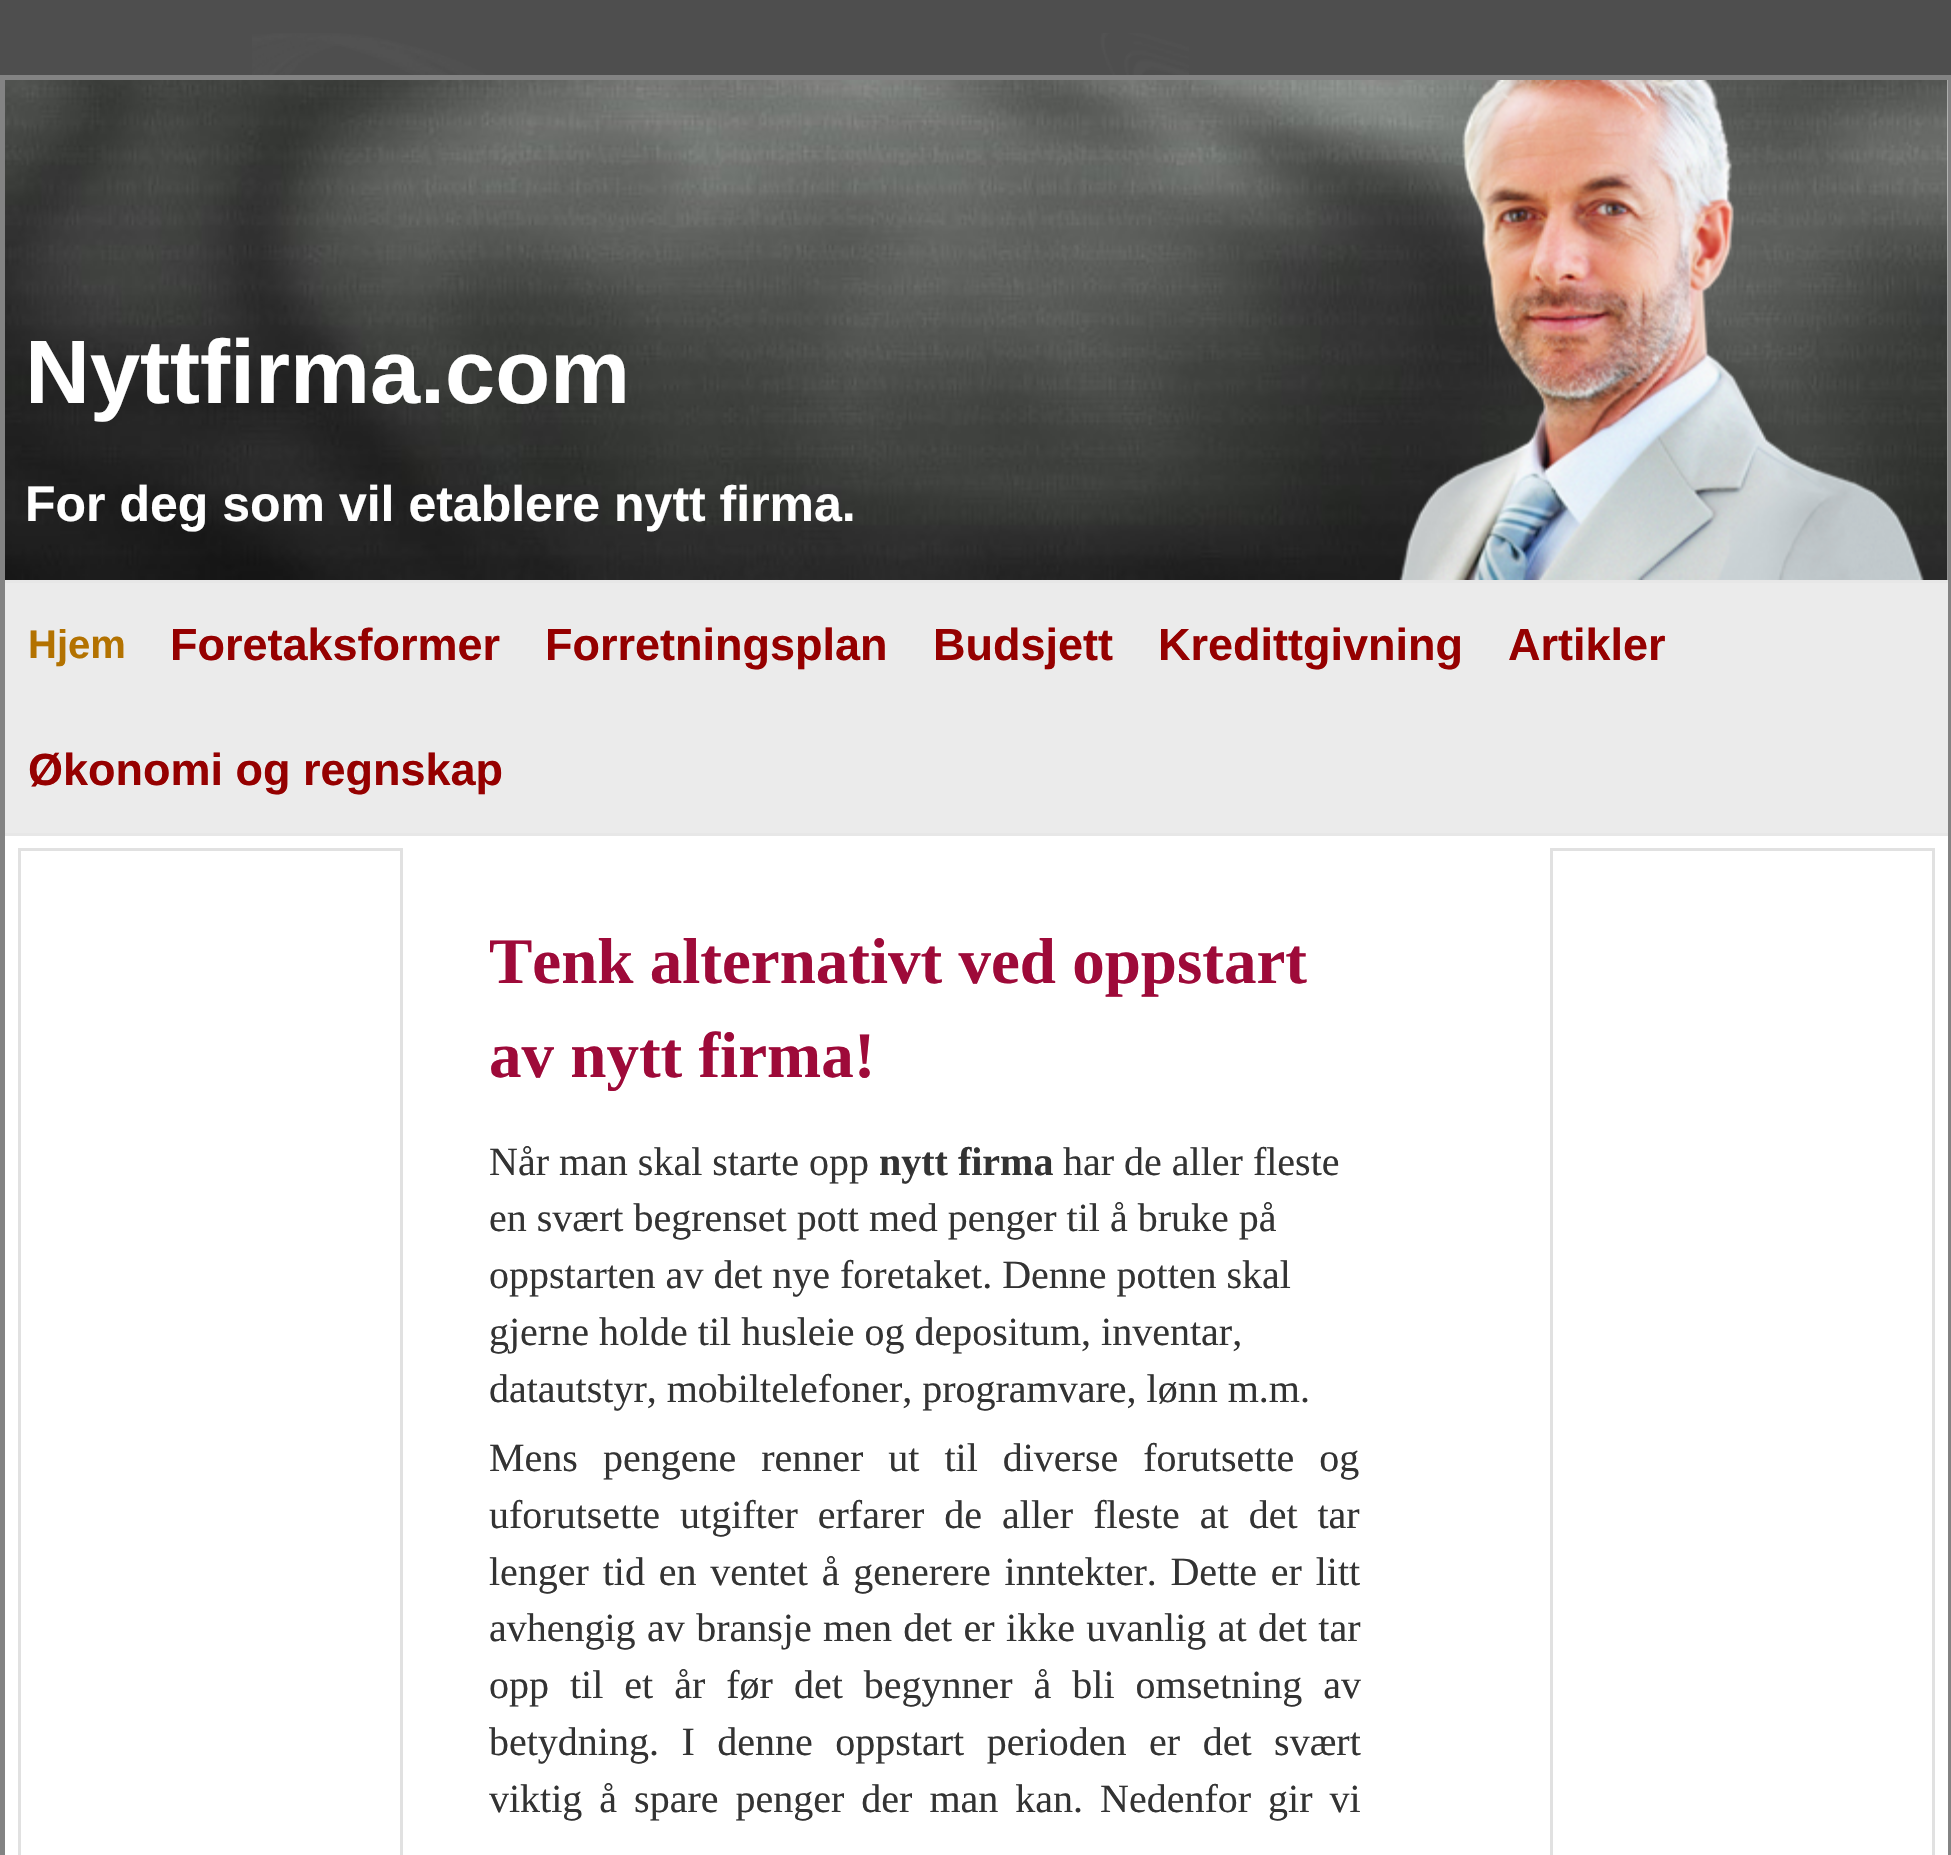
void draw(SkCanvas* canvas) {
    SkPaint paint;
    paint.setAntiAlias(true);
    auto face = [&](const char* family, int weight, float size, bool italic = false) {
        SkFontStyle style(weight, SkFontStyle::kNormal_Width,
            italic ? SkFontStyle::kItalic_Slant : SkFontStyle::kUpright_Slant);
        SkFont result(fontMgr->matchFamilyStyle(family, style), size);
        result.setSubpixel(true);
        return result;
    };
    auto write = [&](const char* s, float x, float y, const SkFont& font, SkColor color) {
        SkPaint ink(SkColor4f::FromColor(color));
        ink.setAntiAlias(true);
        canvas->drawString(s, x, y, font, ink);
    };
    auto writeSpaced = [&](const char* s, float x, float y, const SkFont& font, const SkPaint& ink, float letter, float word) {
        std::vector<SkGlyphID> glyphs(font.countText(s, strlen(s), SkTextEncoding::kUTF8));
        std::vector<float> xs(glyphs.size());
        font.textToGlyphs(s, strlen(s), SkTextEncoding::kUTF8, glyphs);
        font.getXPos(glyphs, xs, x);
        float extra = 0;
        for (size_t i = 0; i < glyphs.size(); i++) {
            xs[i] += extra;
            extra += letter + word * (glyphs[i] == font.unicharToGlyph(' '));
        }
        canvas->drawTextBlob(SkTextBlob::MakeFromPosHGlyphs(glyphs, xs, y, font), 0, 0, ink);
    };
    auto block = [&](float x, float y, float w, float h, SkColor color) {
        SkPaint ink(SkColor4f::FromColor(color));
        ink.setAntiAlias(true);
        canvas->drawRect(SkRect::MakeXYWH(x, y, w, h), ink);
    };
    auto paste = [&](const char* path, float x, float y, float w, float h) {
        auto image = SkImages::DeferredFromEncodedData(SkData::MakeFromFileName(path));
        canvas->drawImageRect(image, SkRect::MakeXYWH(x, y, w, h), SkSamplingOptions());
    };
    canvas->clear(SkColorSetRGB(78, 78, 78));
    paste("pic1.png", 252, 33, 937, 42);
    block(5, 80, 1943, 1775, SK_ColorWHITE);
    paint.setStyle(SkPaint::kStroke_Style);
    paint.setStrokeWidth(5);
    paint.setColor(SkColorSetRGB(131, 131, 131));
    canvas->drawRect(SkRect::MakeXYWH(2.5f, 77.5f, 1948, 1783), paint);
    paste("pic2.png", 5, 80, 1943, 500);
    auto kFont1 = face("Liberation Sans", 700, 90);
    write("Nyttfirma.com", 25, 403, kFont1, SK_ColorWHITE);
    paste("pic3.png", 1399, 80, 525, 500);
    auto kFont2 = face("Liberation Sans", 700, 50);
    write("For deg som vil etablere nytt firma.", 25, 521, kFont2, SK_ColorWHITE);
    block(5, 583, 1943, 250, SkColorSetRGB(235, 235, 235));
    block(5, 580, 1943, 3, SkColorSetRGB(231, 231, 231));
    block(5, 833, 1943, 3, SkColorSetRGB(231, 231, 231));
    auto kFont3 = face("Liberation Sans", 700, 40);
    write("Hjem", 28, 658, kFont3, SkColorSetRGB(179, 114, 0));
    auto kFont4 = face("Liberation Sans", 700, 45);
    write("Foretaksformer", 170, 660, kFont4, SkColorSetRGB(149, 0, 0));
    write("Forretningsplan", 545, 660, kFont4, SkColorSetRGB(149, 0, 0));
    write("Budsjett", 933, 660, kFont4, SkColorSetRGB(149, 0, 0));
    write("Kredittgivning", 1158, 660, kFont4, SkColorSetRGB(149, 0, 0));
    write("Artikler", 1508, 660, kFont4, SkColorSetRGB(149, 0, 0));
    write("Økonomi og regnskap", 28, 785, kFont4, SkColorSetRGB(149, 0, 0));
    paint.setStrokeWidth(3);
    paint.setColor(SkColorSetRGB(225, 225, 225));
    canvas->drawRect(SkRect::MakeXYWH(19.5f, 849.5f, 382, 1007), paint);
    auto kFont5 = face("Liberation Serif", 700, 65);
    write("Tenk alternativt ved oppstart", 489, 983, kFont5, SkColorSetRGB(158, 10, 57));
    write("av nytt firma!", 489, 1077, kFont5, SkColorSetRGB(158, 10, 57));
    auto kFont6 = face("Liberation Serif", 400, 40);
    write("Når man skal starte opp", 489, 1175, kFont6, SkColorSetRGB(51, 51, 51));
    auto kFont7 = face("Liberation Serif", 700, 40);
    write("nytt firma", 879, 1175, kFont7, SkColorSetRGB(51, 51, 51));
    write("har de aller fleste", 1063, 1175, kFont6, SkColorSetRGB(51, 51, 51));
    write("en svært begrenset pott med penger til å bruke på", 489, 1231, kFont6, SkColorSetRGB(51, 51, 51));
    write("oppstarten av det nye foretaket. Denne potten skal", 489, 1288, kFont6, SkColorSetRGB(51, 51, 51));
    write("gjerne holde til husleie og depositum, inventar,", 489, 1345, kFont6, SkColorSetRGB(51, 51, 51));
    write("datautstyr, mobiltelefoner, programvare, lønn m.m.", 489, 1402, kFont6, SkColorSetRGB(51, 51, 51));
    paint.setStyle(SkPaint::kFill_Style);
    paint.setColor(SkColorSetRGB(51, 51, 51));
    writeSpaced("Mens pengene renner ut til diverse forutsette og", 489, 1471, kFont6, paint, 0, 15);
    writeSpaced("uforutsette utgifter erfarer de aller fleste at det tar", 489, 1528, kFont6, paint, 0, 10);
    writeSpaced("lenger tid en ventet å generere inntekter. Dette er litt", 489, 1585, kFont6, paint, 0, 3.75f);
    writeSpaced("avhengig av bransje men det er ikke uvanlig at det tar", 489, 1641, kFont6, paint, 0, 1.4f);
    writeSpaced("opp til et år før det begynner å bli omsetning av", 489, 1698, kFont6, paint, 0, 11);
    writeSpaced("betydning. I denne oppstart perioden er det svært", 489, 1755, kFont6, paint, 0, 12.5f);
    writeSpaced("viktig å spare penger der man kan. Nedenfor gir vi", 489, 1812, kFont6, paint, 0, 7);
    paint.setStyle(SkPaint::kStroke_Style);
    paint.setColor(SkColorSetRGB(225, 225, 225));
    canvas->drawRect(SkRect::MakeXYWH(1551.5f, 849.5f, 382, 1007), paint);
}
